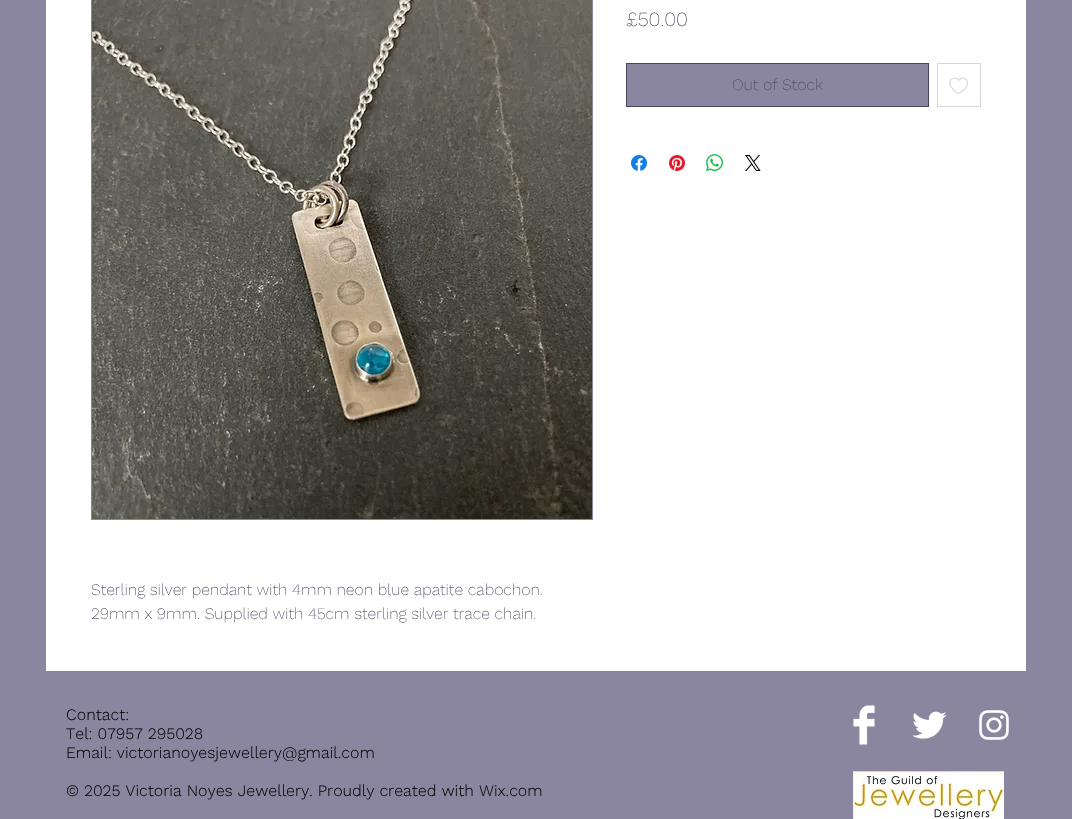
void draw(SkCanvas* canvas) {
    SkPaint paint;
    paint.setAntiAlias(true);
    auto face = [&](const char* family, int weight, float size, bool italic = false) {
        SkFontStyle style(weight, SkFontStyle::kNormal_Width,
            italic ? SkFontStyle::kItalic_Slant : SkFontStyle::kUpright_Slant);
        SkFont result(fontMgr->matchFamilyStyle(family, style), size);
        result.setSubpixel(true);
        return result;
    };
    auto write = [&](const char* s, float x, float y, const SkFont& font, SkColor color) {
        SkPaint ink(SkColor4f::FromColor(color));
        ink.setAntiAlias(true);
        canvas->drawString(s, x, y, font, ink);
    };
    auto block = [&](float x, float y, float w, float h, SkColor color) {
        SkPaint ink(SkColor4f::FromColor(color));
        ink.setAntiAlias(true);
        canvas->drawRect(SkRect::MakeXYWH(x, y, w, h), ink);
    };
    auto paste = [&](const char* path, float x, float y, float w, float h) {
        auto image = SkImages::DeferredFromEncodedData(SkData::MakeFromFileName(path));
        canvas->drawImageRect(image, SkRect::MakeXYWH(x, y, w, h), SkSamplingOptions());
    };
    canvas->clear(SkColorSetRGB(138, 134, 160));
    block(46, 0, 980, 671, SK_ColorWHITE);
    auto kFont1 = face("Work Sans", 200, 20);
    write("£50.00", 626, 26, kFont1, SkColorSetRGB(70, 67, 91));
    paint.setColor(SkColorSetRGB(138, 134, 160));
    canvas->drawRect(SkRect::MakeXYWH(626.5f, 63.5f, 302, 43), paint);
    paint.setStyle(SkPaint::kStroke_Style);
    paint.setStrokeWidth(1);
    paint.setColor(SkColorSetRGB(70, 67, 91));
    canvas->drawRect(SkRect::MakeXYWH(626.5f, 63.5f, 302, 43), paint);
    auto kFont2 = face("Work Sans", 200, 16);
    write("Out of Stock", 732, 90, kFont2, SkColorSetRGB(70, 67, 91));
    paint.setColor(SkColorSetRGB(218, 210, 222));
    canvas->drawRect(SkRect::MakeXYWH(937.5f, 63.5f, 43, 43), paint);
    paste("pic1.png", 949, 77, 19, 17);
    paste("pic2.png", 631, 155, 16, 16);
    paste("pic3.png", 669, 155, 16, 16);
    paste("pic4.png", 706, 154, 17, 17);
    paste("pic5.png", 745, 155, 16, 16);
    paint.setColor(SkColorSetRGB(138, 134, 160));
    canvas->drawRect(SkRect::MakeXYWH(91.5f, -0.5f, 501, 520), paint);
    paste("pic6.png", 92, 0, 500, 519);
    write("Sterling silver pendant with 4mm neon blue apatite cabochon.", 91, 595, kFont2, SkColorSetRGB(70, 67, 91));
    write("29mm x 9mm. Supplied with 45cm sterling silver trace chain.", 91, 619, kFont2, SkColorSetRGB(70, 67, 91));
    auto kFont3 = face("Work Sans", 300, 16);
    write("Contact:", 66, 720, kFont3, SkColorSetRGB(9, 9, 12));
    write("Tel: 07957 295028", 66, 739, kFont3, SkColorSetRGB(9, 9, 12));
    write("Email: victorianoyesjewellery@gmail.com", 66, 758, kFont3, SkColorSetRGB(9, 9, 12));
    write("© 2025 Victoria Noyes Jewellery. Proudly created with Wix.com", 66, 796, kFont3, SkColorSetRGB(9, 9, 12));
    paste("pic7.png", 853, 705, 22, 40);
    paste("pic8.png", 912, 711, 35, 28);
    paste("pic9.png", 979, 710, 30, 30);
    paste("pic10.png", 853, 771, 151, 48);
}
